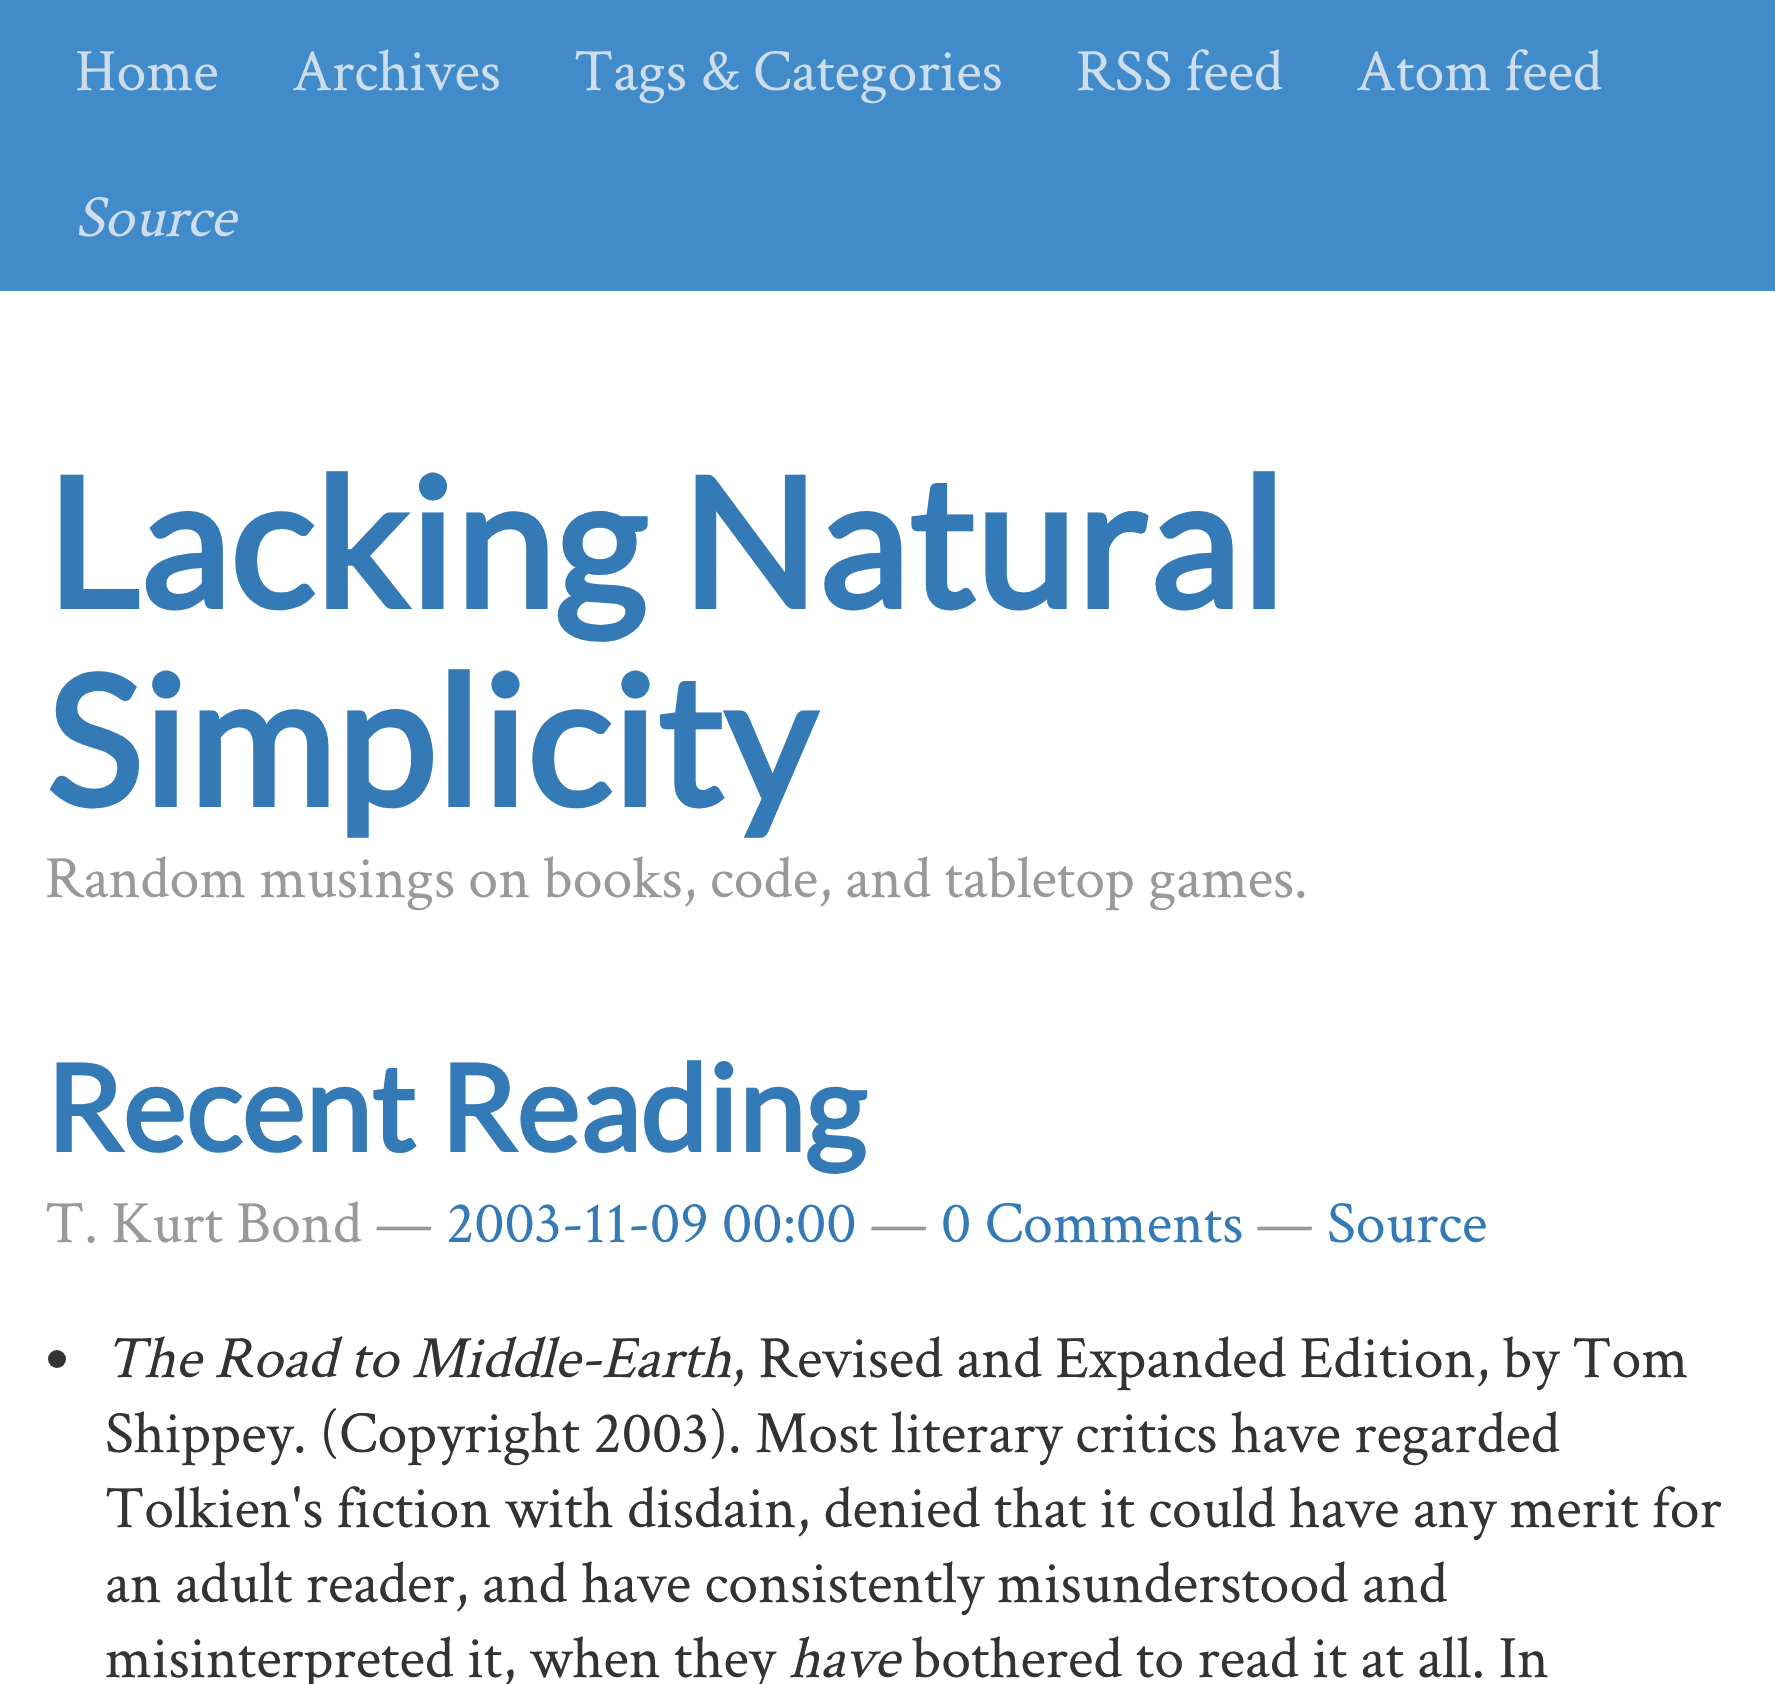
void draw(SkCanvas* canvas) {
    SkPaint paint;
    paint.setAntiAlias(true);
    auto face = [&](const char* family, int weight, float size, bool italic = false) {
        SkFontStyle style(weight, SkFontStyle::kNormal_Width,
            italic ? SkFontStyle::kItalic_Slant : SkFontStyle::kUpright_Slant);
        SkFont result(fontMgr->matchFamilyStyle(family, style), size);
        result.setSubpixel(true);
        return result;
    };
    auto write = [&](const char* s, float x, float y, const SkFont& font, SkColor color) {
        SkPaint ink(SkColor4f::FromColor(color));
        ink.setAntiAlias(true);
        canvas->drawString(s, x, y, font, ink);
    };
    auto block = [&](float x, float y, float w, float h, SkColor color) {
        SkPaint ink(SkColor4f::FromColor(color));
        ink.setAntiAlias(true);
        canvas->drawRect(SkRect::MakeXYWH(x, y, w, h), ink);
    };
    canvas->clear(SK_ColorWHITE);
    block(0, 0, 1775, 291, SkColorSetRGB(66, 139, 202));
    auto kFont1 = face("Crimson Text", 400, 60);
    write("Home", 75, 90, kFont1, SkColorSetRGB(205, 221, 235));
    write("Archives", 292, 90, kFont1, SkColorSetRGB(205, 221, 235));
    write("Tags & Categories", 574, 90, kFont1, SkColorSetRGB(205, 221, 235));
    write("RSS feed", 1076, 90, kFont1, SkColorSetRGB(205, 221, 235));
    write("Atom feed", 1356, 90, kFont1, SkColorSetRGB(205, 221, 235));
    auto kFont2 = face("Crimson Text", 400, 60, true);
    write("Source", 75, 236, kFont2, SkColorSetRGB(205, 221, 235));
    auto kFont3 = face("Lato", 700, 180);
    write("Lacking Natural", 45, 609, kFont3, SkColorSetRGB(51, 122, 183));
    write("Simplicity", 45, 807, kFont3, SkColorSetRGB(51, 122, 183));
    write("Random musings on books, code, and tabletop games.", 45, 897, kFont1, SkColorSetRGB(153, 153, 153));
    auto kFont4 = face("Lato", 700, 120);
    write("Recent Reading", 45, 1152, kFont4, SkColorSetRGB(51, 122, 183));
    write("T. Kurt Bond —", 45, 1242, kFont1, SkColorSetRGB(153, 153, 153));
    write("2003-11-09 00:00", 446, 1242, kFont1, SkColorSetRGB(51, 122, 183));
    write("—", 870, 1242, kFont1, SkColorSetRGB(153, 153, 153));
    write("0 Comments", 941, 1242, kFont1, SkColorSetRGB(51, 122, 183));
    write("—", 1256, 1242, kFont1, SkColorSetRGB(153, 153, 153));
    write("Source", 1327, 1242, kFont1, SkColorSetRGB(51, 122, 183));
    paint.setColor(SkColorSetRGB(51, 51, 51));
    canvas->drawCircle(57, 1359, 9, paint);
    write("The Road to Middle-Earth", 105, 1377, kFont2, SkColorSetRGB(51, 51, 51));
    write(", Revised and Expanded Edition, by Tom", 731, 1377, kFont1, SkColorSetRGB(51, 51, 51));
    write("Shippey. (Copyright 2003). Most literary critics have regarded", 105, 1452, kFont1, SkColorSetRGB(51, 51, 51));
    write("Tolkien's fiction with disdain, denied that it could have any merit for", 105, 1527, kFont1, SkColorSetRGB(51, 51, 51));
    write("an adult reader, and have consistently misunderstood and", 105, 1602, kFont1, SkColorSetRGB(51, 51, 51));
    write("misinterpreted it, when they", 105, 1677, kFont1, SkColorSetRGB(51, 51, 51));
    write("have", 789, 1677, kFont2, SkColorSetRGB(51, 51, 51));
    write("bothered to read it at all. In", 912, 1677, kFont1, SkColorSetRGB(51, 51, 51));
}
